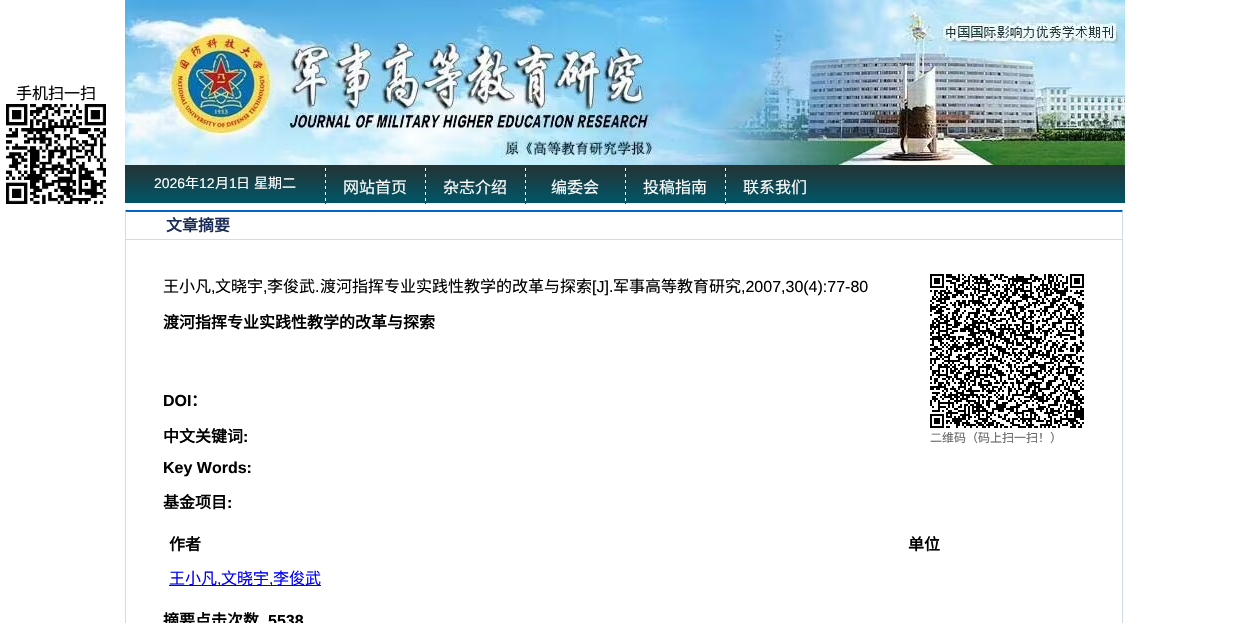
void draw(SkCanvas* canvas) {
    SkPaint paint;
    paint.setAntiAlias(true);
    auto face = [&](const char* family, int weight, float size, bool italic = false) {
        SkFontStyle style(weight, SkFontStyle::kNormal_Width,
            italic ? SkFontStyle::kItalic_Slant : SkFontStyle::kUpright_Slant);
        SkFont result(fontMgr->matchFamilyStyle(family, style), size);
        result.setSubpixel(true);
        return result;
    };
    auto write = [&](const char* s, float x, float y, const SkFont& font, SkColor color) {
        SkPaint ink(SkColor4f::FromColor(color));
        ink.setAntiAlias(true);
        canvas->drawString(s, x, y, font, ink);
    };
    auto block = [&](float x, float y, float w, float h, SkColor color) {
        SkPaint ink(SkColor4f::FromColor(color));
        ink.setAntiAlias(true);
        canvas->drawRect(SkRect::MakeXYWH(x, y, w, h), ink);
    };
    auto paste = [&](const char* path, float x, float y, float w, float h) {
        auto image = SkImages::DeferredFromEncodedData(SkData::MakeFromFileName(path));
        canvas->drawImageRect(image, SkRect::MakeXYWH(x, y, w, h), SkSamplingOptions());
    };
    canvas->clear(SK_ColorWHITE);
    auto kFont1 = face("Noto Sans CJK SC", 400, 16);
    write("手机扫一扫", 16, 99, kFont1, SK_ColorBLACK);
    paste("pic1.png", 6, 104, 100, 100);
    paste("pic2.png", 125, 0, 1000, 165);
    paste("pic3.png", 125, 165, 1000, 38);
    auto kFont2 = face("Liberation Sans", 400, 14);
    write("2026", 154, 188, kFont2, SK_ColorWHITE);
    auto kFont3 = face("Noto Sans CJK SC", 400, 14);
    write("年", 185, 188, kFont3, SK_ColorWHITE);
    write("12", 199, 188, kFont2, SK_ColorWHITE);
    write("月", 215, 188, kFont3, SK_ColorWHITE);
    write("1", 229, 188, kFont2, SK_ColorWHITE);
    write("日", 236, 188, kFont3, SK_ColorWHITE);
    write("星期二", 254, 188, kFont3, SK_ColorWHITE);
    paste("pic4.png", 325, 168, 1, 36);
    write("网站首页", 343, 193, kFont1, SK_ColorWHITE);
    paste("pic4.png", 425, 168, 1, 36);
    write("杂志介绍", 443, 193, kFont1, SK_ColorWHITE);
    paste("pic4.png", 525, 168, 1, 36);
    write("编委会", 551, 193, kFont1, SK_ColorWHITE);
    paste("pic4.png", 625, 168, 1, 36);
    write("投稿指南", 643, 193, kFont1, SK_ColorWHITE);
    paste("pic4.png", 725, 168, 1, 36);
    write("联系我们", 743, 193, kFont1, SK_ColorWHITE);
    paint.setColor(SkColorSetRGB(0, 102, 204));
    canvas->drawPath(SkPathBuilder().moveTo(125, 210).lineTo(1123, 210).lineTo(1122, 212).lineTo(126, 212).close().detach(), paint);
    paint.setColor(SkColorSetRGB(211, 219, 230));
    canvas->drawPath(SkPathBuilder().moveTo(1123, 210).lineTo(1123, 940).lineTo(1122, 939).lineTo(1122, 212).close().detach(), paint);
    canvas->drawPath(SkPathBuilder().moveTo(125, 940).lineTo(125, 210).lineTo(126, 212).lineTo(126, 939).close().detach(), paint);
    block(126, 239, 996, 1, SkColorSetRGB(211, 219, 230));
    auto kFont4 = face("Noto Sans CJK SC", 700, 16);
    write("文章摘要", 166, 231, kFont4, SkColorSetRGB(28, 44, 88));
    write("王小凡", 163, 292, kFont1, SK_ColorBLACK);
    auto kFont5 = face("Liberation Sans", 400, 16);
    write(",", 211, 292, kFont5, SK_ColorBLACK);
    write("文晓宇", 215, 292, kFont1, SK_ColorBLACK);
    write(",", 263, 292, kFont5, SK_ColorBLACK);
    write("李俊武", 267, 292, kFont1, SK_ColorBLACK);
    write(".", 315, 292, kFont5, SK_ColorBLACK);
    write("渡河指挥专业实践性教学的改革与探索", 320, 292, kFont1, SK_ColorBLACK);
    write("[J].", 592, 292, kFont5, SK_ColorBLACK);
    write("军事高等教育研究", 613, 292, kFont1, SK_ColorBLACK);
    write(",2007,30(4):77-80", 741, 292, kFont5, SK_ColorBLACK);
    paste("pic5.png", 930, 274, 154, 154);
    auto kFont6 = face("Noto Sans CJK SC", 400, 12);
    write("二维码（码上扫一扫！）", 930, 442, kFont6, SkColorSetRGB(102, 102, 102));
    write("渡河指挥专业实践性教学的改革与探索", 163, 328, kFont4, SK_ColorBLACK);
    auto kFont7 = face("Liberation Sans", 700, 16);
    write("DOI", 163, 406, kFont7, SK_ColorBLACK);
    write("：", 191, 406, kFont4, SK_ColorBLACK);
    write("中文关键词", 163, 442, kFont4, SK_ColorBLACK);
    write(":", 243, 442, kFont7, SK_ColorBLACK);
    write("Key Words:", 163, 473, kFont7, SK_ColorBLACK);
    write("基金项目", 163, 508, kFont4, SK_ColorBLACK);
    write(":", 227, 508, kFont7, SK_ColorBLACK);
    write("作者", 169, 550, kFont4, SK_ColorBLACK);
    write("单位", 908, 550, kFont4, SK_ColorBLACK);
    block(169, 585, 152, 1, SkColorSetRGB(0, 0, 255));
    write("王小凡", 169, 584, kFont1, SkColorSetRGB(0, 0, 255));
    write(",", 217, 584, kFont5, SkColorSetRGB(0, 0, 255));
    write("文晓宇", 221, 584, kFont1, SkColorSetRGB(0, 0, 255));
    write(",", 269, 584, kFont5, SkColorSetRGB(0, 0, 255));
    write("李俊武", 273, 584, kFont1, SkColorSetRGB(0, 0, 255));
    write("摘要点击次数", 163, 626, kFont4, SK_ColorBLACK);
    write("5538", 268, 626, kFont7, SK_ColorBLACK);
}
